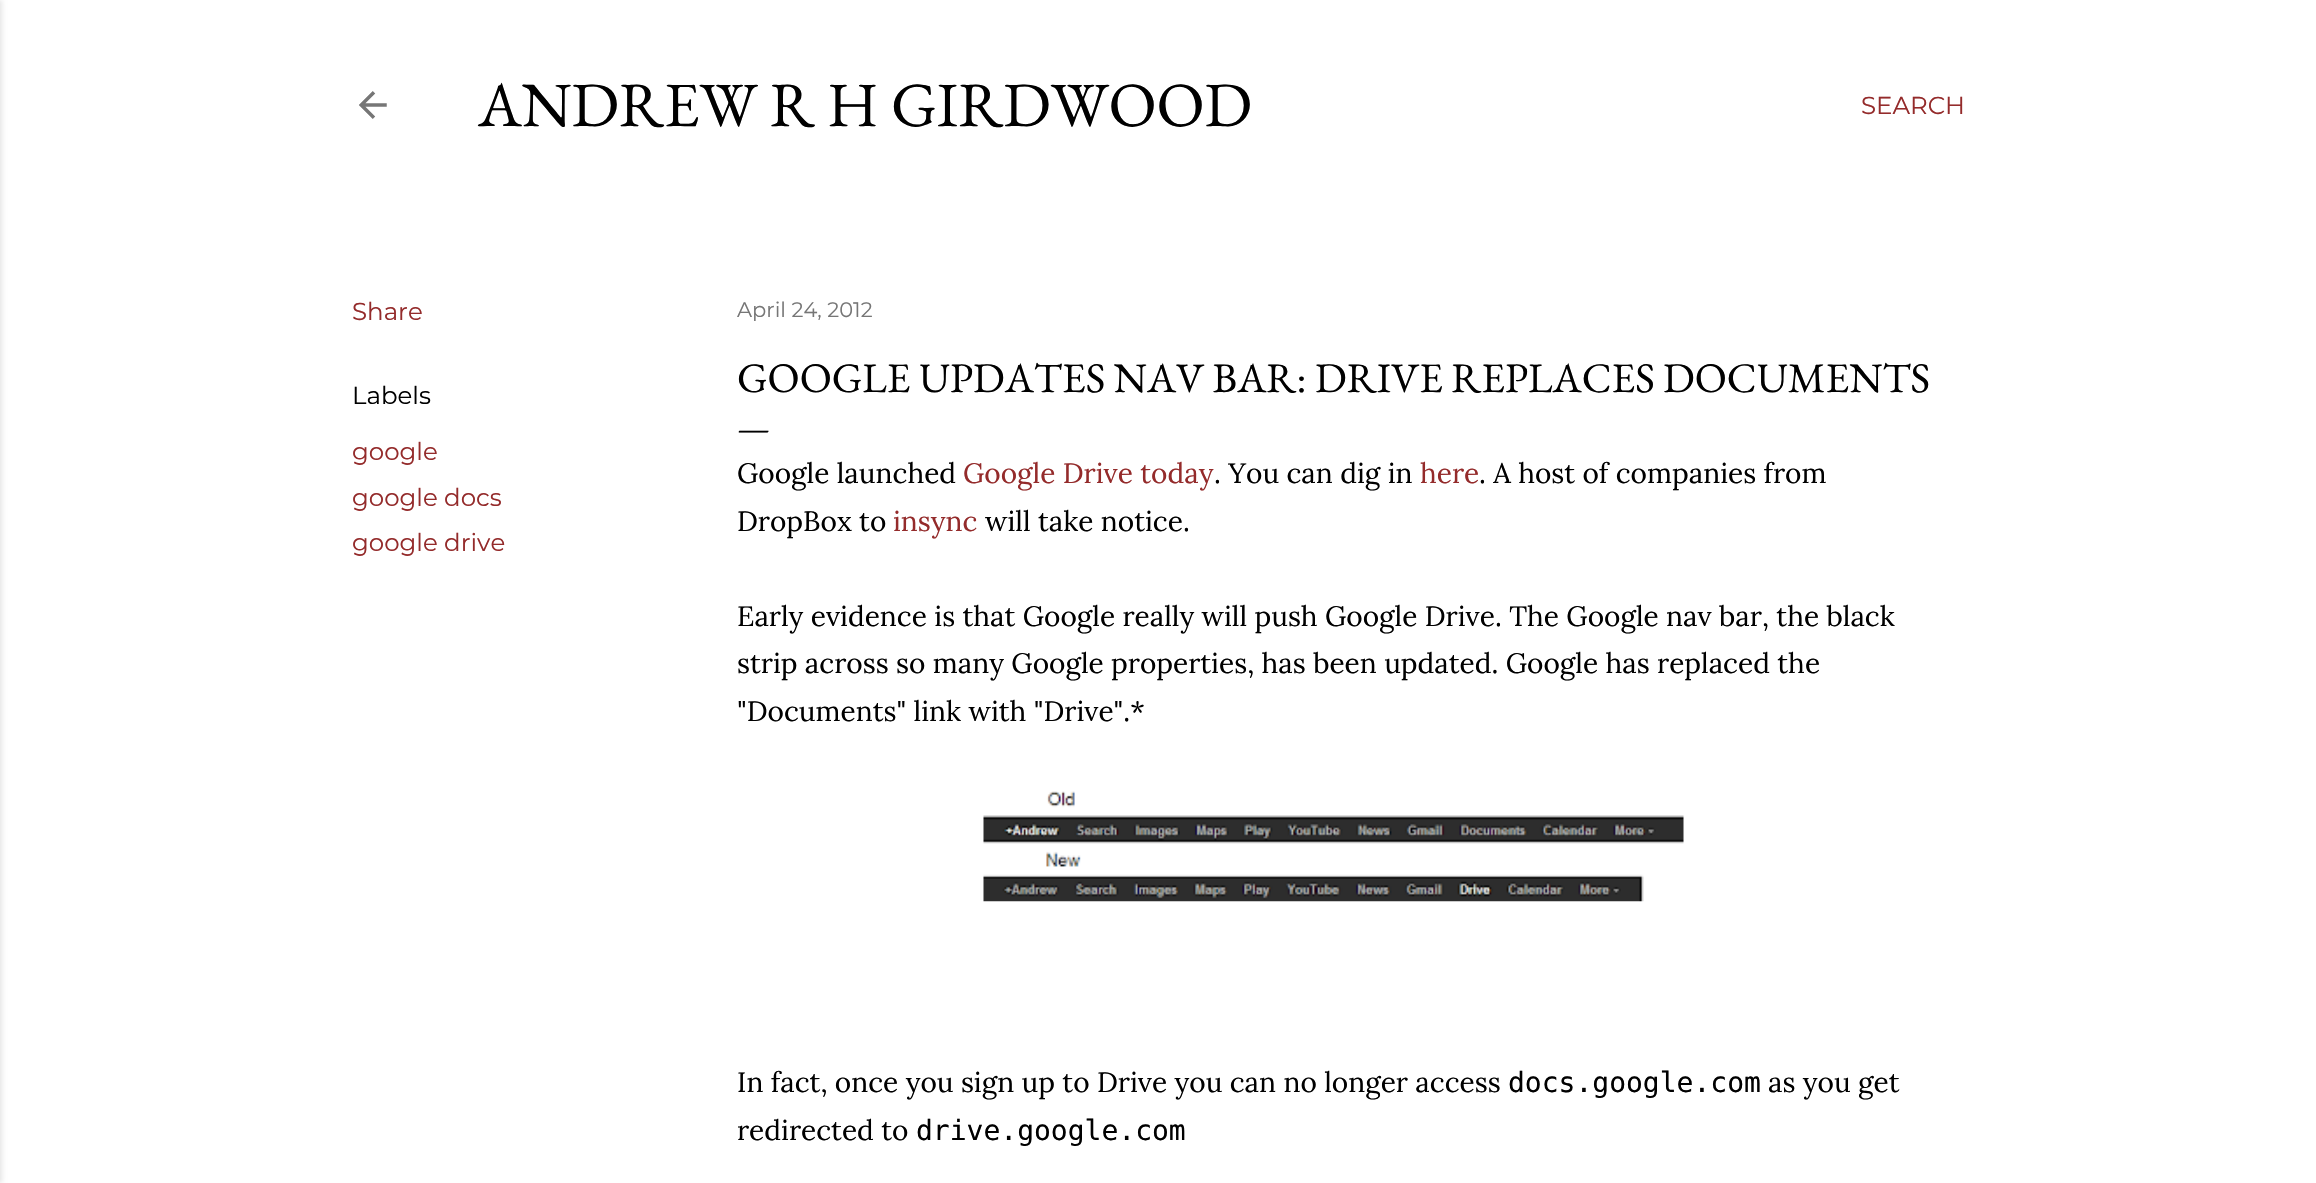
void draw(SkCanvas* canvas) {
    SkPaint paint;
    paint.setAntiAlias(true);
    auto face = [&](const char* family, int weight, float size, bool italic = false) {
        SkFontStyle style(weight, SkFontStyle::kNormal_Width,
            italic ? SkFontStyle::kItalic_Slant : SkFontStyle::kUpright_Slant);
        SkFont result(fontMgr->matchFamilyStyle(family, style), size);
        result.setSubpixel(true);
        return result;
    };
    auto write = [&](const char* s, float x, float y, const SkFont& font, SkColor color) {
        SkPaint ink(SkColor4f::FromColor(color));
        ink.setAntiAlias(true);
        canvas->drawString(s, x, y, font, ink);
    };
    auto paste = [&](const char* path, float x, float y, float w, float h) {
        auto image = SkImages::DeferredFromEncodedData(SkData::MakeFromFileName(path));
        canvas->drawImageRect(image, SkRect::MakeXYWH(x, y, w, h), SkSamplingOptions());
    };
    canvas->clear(SK_ColorWHITE);
    paint.setColor(SkColorSetARGB(26, 0, 0, 0));
    paint.setMaskFilter(SkMaskFilter::MakeBlur(kNormal_SkBlurStyle, 2.5f));
    canvas->drawRect(SkRect::MakeXYWH(-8, 0, 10, 1183), paint);
    paint.setMaskFilter(nullptr);
    paste("pic1.png", 359, 91, 28, 28);
    auto kFont1 = face("EB Garamond", 400, 63);
    write("ANDREW R H GIRDWOOD", 478, 126, kFont1, SK_ColorBLACK);
    auto kFont2 = face("Montserrat", 400, 24.5f);
    write("SEARCH", 1861, 114, kFont2, SkColorSetRGB(148, 43, 43));
    write("Share", 352, 320, kFont2, SkColorSetRGB(148, 43, 43));
    write("Labels", 352, 404, kFont2, SK_ColorBLACK);
    write("google", 352, 460, kFont2, SkColorSetRGB(148, 43, 43));
    write("google docs", 352, 506, kFont2, SkColorSetRGB(148, 43, 43));
    write("google drive", 352, 551, kFont2, SkColorSetRGB(148, 43, 43));
    auto kFont3 = face("Montserrat", 400, 21);
    write("April 24, 2012", 737, 317, kFont3, SkColorSetRGB(118, 118, 118));
    auto kFont4 = face("EB Garamond", 400, 42);
    write("GOOGLE UPDATES NAV BAR: DRIVE REPLACES DOCUMENTS", 737, 392, kFont4, SK_ColorBLACK);
    auto kFont5 = face("EB Garamond", 400, 35);
    write("—", 737, 439, kFont5, SK_ColorBLACK);
    auto kFont6 = face("Lora", 400, 28);
    write("Google launched", 737, 483, kFont6, SK_ColorBLACK);
    write("Google Drive today", 963, 483, kFont6, SkColorSetRGB(148, 43, 43));
    write(". You can dig in", 1214, 483, kFont6, SK_ColorBLACK);
    write("here", 1420, 483, kFont6, SkColorSetRGB(148, 43, 43));
    write(". A host of companies from", 1479, 483, kFont6, SK_ColorBLACK);
    write("DropBox to", 737, 531, kFont6, SK_ColorBLACK);
    write("insync", 893, 531, kFont6, SkColorSetRGB(148, 43, 43));
    write("will take notice.", 985, 531, kFont6, SK_ColorBLACK);
    write("Early evidence is that Google really will push Google Drive. The Google nav bar, the black", 737, 626, kFont6, SK_ColorBLACK);
    write("strip across so many Google properties, has been updated. Google has replaced the", 737, 673, kFont6, SK_ColorBLACK);
    write("\"Documents\" link with \"Drive\".*", 737, 721, kFont6, SK_ColorBLACK);
    paste("pic2.png", 983, 791, 701, 111);
    write("In fact, once you sign up to Drive you can no longer access", 737, 1092, kFont6, SK_ColorBLACK);
    auto kFont7 = face("DejaVu Sans Mono", 400, 28);
    write("docs.google.com", 1508, 1092, kFont7, SK_ColorBLACK);
    write("as you get", 1768, 1092, kFont6, SK_ColorBLACK);
    write("redirected to", 737, 1140, kFont6, SK_ColorBLACK);
    write("drive.google.com", 916, 1140, kFont7, SK_ColorBLACK);
}
